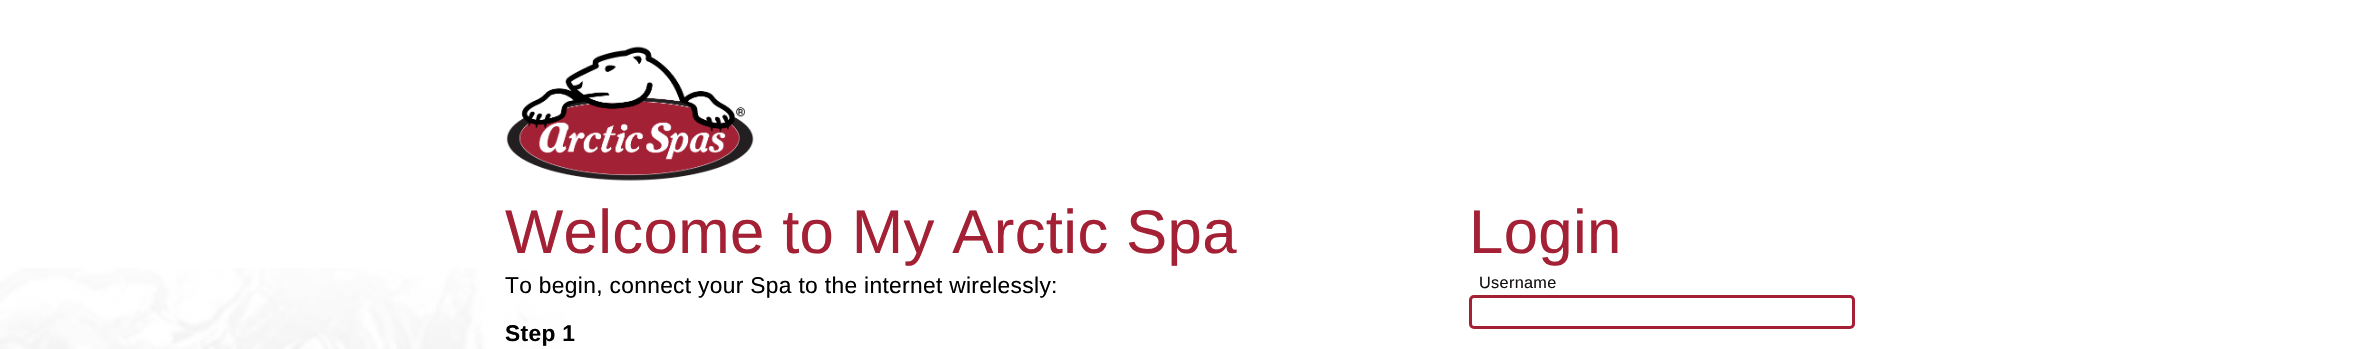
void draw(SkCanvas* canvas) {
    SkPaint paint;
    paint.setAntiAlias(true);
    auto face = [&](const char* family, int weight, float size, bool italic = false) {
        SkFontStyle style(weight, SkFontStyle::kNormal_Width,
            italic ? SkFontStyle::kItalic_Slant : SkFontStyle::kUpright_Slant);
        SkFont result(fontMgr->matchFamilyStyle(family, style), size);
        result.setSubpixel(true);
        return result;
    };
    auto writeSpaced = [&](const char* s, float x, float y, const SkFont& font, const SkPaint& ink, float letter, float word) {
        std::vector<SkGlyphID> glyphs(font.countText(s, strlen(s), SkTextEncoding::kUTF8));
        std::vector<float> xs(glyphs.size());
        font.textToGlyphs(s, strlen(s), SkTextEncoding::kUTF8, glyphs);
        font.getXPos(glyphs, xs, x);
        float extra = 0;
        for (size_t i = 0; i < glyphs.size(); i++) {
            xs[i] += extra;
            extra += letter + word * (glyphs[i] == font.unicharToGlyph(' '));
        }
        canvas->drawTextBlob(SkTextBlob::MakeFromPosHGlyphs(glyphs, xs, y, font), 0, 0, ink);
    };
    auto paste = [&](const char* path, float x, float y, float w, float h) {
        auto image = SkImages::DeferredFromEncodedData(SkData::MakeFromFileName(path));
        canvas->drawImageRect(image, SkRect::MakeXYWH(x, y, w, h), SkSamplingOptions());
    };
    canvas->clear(SK_ColorWHITE);
    paste("pic1.png", 506, 46, 248, 135);
    paste("pic2.png", 0, 268, 565, 81);
    auto kFont1 = face("Liberation Sans", 400, 61.75f);
    paint.setColor(SkColorSetRGB(163, 32, 53));
    writeSpaced("Welcome to My Arctic Spa", 505, 253, kFont1, paint, 0.33f, 0);
    auto kFont2 = face("Liberation Sans", 400, 22.75f);
    paint.setColor(SK_ColorBLACK);
    writeSpaced("To begin, connect your Spa to the internet wirelessly:", 505, 293, kFont2, paint, 0.33f, 0);
    auto kFont3 = face("Liberation Sans", 700, 22.75f);
    writeSpaced("Step 1", 505, 341, kFont3, paint, 0.33f, 0);
    paint.setColor(SkColorSetRGB(163, 32, 53));
    writeSpaced("Login", 1469, 253, kFont1, paint, 0.33f, 0);
    auto kFont4 = face("Liberation Sans", 400, 16.25f);
    paint.setColor(SkColorSetRGB(17, 17, 17));
    writeSpaced("Username", 1479, 288, kFont4, paint, 0.33f, 0);
    paint.setStyle(SkPaint::kStroke_Style);
    paint.setStrokeWidth(3);
    paint.setColor(SkColorSetRGB(163, 32, 53));
    canvas->drawRoundRect(SkRect::MakeXYWH(1470.5f, 296.5f, 383, 31), 3.5f, 3.5f, paint);
}
